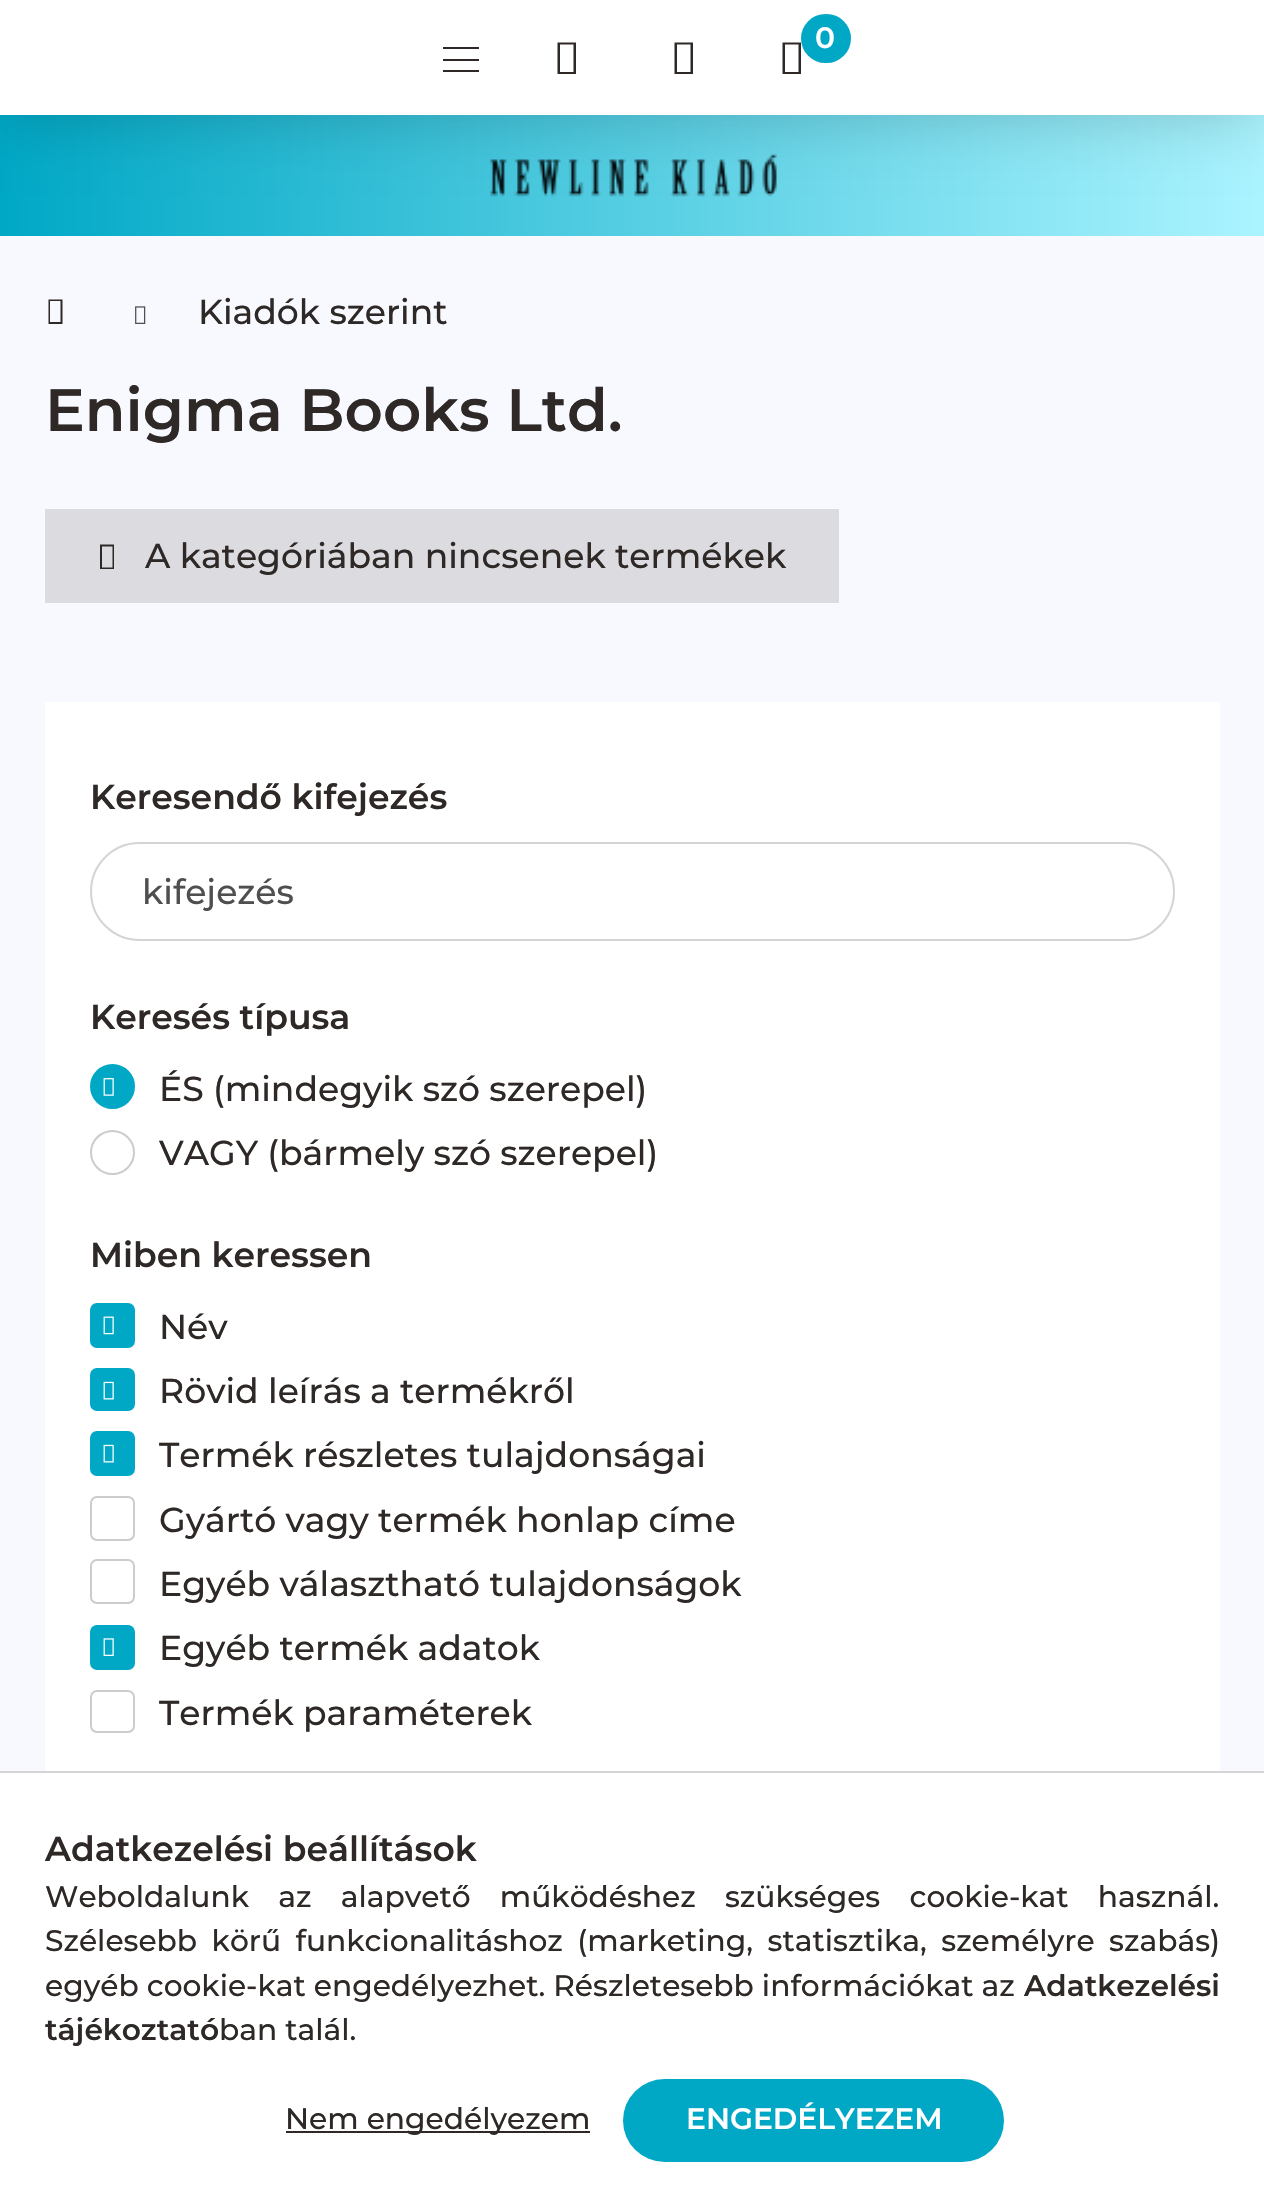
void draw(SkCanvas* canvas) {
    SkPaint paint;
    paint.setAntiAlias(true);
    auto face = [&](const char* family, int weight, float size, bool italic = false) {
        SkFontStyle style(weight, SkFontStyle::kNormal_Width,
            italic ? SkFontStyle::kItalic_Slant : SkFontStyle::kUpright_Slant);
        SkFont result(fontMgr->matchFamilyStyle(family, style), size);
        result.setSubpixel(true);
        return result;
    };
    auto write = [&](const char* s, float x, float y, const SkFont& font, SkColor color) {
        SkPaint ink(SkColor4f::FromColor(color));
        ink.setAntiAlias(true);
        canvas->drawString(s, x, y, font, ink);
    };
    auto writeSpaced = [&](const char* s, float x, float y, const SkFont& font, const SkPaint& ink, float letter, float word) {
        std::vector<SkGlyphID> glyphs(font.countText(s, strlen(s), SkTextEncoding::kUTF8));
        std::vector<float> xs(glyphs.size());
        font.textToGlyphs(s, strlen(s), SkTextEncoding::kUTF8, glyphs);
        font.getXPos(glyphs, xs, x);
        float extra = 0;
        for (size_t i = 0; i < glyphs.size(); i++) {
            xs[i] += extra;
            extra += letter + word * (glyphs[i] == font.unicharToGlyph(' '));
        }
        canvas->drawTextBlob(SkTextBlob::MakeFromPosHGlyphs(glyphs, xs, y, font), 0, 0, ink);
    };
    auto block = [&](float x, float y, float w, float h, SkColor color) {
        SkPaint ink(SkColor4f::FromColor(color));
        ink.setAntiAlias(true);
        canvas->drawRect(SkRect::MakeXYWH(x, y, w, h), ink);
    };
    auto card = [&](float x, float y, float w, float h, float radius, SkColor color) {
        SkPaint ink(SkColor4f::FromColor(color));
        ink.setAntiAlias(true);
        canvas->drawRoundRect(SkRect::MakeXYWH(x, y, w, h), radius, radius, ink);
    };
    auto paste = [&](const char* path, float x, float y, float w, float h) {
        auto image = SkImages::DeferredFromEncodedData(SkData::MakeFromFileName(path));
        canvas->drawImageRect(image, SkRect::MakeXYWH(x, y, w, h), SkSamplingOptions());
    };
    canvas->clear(SkColorSetRGB(248, 248, 255));
    {
        const SkColor colors[] = {SkColorSetRGB(0, 168, 198), SkColorSetRGB(171, 244, 255)};
        const float stops[] = {0, 1};
        const SkPoint ends[] = {{0, 1106}, {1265, 1106}};
        paint.setShader(SkGradientShader::MakeLinear(ends, colors, stops, 2, SkTileMode::kClamp));
        paint.setAlpha(255);
    }
    canvas->drawRect(SkRect::MakeXYWH(0, 115, 1264, 121), paint);
    paste("pic1.png", 490, 153, 287, 44);
    paint.setShader(nullptr);
    paint.setColor(SkColorSetARGB(51, 0, 0, 0));
    paint.setMaskFilter(SkMaskFilter::MakeBlur(kNormal_SkBlurStyle, 34));
    canvas->drawRect(SkRect::MakeXYWH(0, 0, 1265, 115), paint);
    paint.setMaskFilter(nullptr);
    block(0, 0, 1264, 115, SK_ColorWHITE);
    card(801, 14, 50, 49, 24.5f, SkColorSetRGB(0, 168, 198));
    auto kFont1 = face("Montserrat", 600, 29.7f);
    write("0", 815, 48, kFont1, SK_ColorWHITE);
    paint.setColor(SkColorSetRGB(46, 41, 38));
    canvas->drawPath(SkPathBuilder().moveTo(782.5f, 74).lineTo(782.5f, 42.5f).lineTo(801, 42.5f).lineTo(801, 74).close().moveTo(785, 72).lineTo(798.5f, 72).lineTo(798.5f, 44.5f).lineTo(785, 44.5f).close().detach(), paint);
    block(443, 47, 36, 2, SkColorSetRGB(46, 41, 38));
    block(443, 59, 36, 2, SkColorSetRGB(46, 41, 38));
    block(443, 70, 36, 2, SkColorSetRGB(46, 41, 38));
    canvas->drawPath(SkPathBuilder().moveTo(557.5f, 74).lineTo(557.5f, 42.5f).lineTo(576, 42.5f).lineTo(576, 74).close().moveTo(560, 72).lineTo(573.5f, 72).lineTo(573.5f, 44.5f).lineTo(560, 44.5f).close().detach(), paint);
    canvas->drawPath(SkPathBuilder().moveTo(674.5f, 74).lineTo(674.5f, 42.5f).lineTo(693, 42.5f).lineTo(693, 74).close().moveTo(677, 72).lineTo(690.5f, 72).lineTo(690.5f, 44.5f).lineTo(677, 44.5f).close().detach(), paint);
    canvas->drawPath(SkPathBuilder().moveTo(48.5f, 324).lineTo(48.5f, 299.5f).lineTo(62.5f, 299.5f).lineTo(62.5f, 324).close().moveTo(50, 322).lineTo(60.5f, 322).lineTo(60.5f, 301).lineTo(50, 301).close().detach(), paint);
    paste("pic2.png", 135, 306, 11, 18);
    auto kFont2 = face("Montserrat", 500, 34.6f);
    write("Kiadók szerint", 198, 324, kFont2, SkColorSetRGB(46, 41, 38));
    auto kFont3 = face("Montserrat", 600, 59.5f);
    write("Enigma Books Ltd.", 45, 431, kFont3, SkColorSetRGB(46, 41, 38));
    block(45, 509, 794, 94, SkColorSetRGB(219, 219, 224));
    canvas->drawPath(SkPathBuilder().moveTo(100, 569).lineTo(100, 544.5f).lineTo(114, 544.5f).lineTo(114, 569).close().moveTo(102, 567.5f).lineTo(112.5f, 567.5f).lineTo(112.5f, 546.5f).lineTo(102, 546.5f).close().detach(), paint);
    write("A kategóriában nincsenek termékek", 145, 568, kFont2, SkColorSetRGB(46, 41, 38));
    block(45, 702, 1175, 1069, SK_ColorWHITE);
    auto kFont4 = face("Montserrat", 600, 34.6f);
    write("Keresendő kifejezés", 90, 809, kFont4, SkColorSetRGB(46, 41, 38));
    paint.setStyle(SkPaint::kStroke_Style);
    paint.setStrokeWidth(2);
    paint.setColor(SkColorSetRGB(213, 212, 212));
    canvas->drawRoundRect(SkRect::MakeXYWH(91, 843, 1083, 97), 48.5f, 48.5f, paint);
    write("kifejezés", 142, 904, kFont2, SkColorSetRGB(79, 79, 79));
    write("Keresés típusa", 90, 1029, kFont4, SkColorSetRGB(46, 41, 38));
    paint.setStyle(SkPaint::kFill_Style);
    paint.setColor(SkColorSetRGB(0, 168, 198));
    canvas->drawCircle(112.5f, 1086.5f, 21.5f, paint);
    paint.setStyle(SkPaint::kStroke_Style);
    canvas->drawCircle(112.5f, 1086.5f, 21.5f, paint);
    paste("pic3.png", 103, 1078, 11, 18);
    write("ÉS (mindegyik szó szerepel)", 159, 1101, kFont2, SkColorSetRGB(46, 41, 38));
    paint.setColor(SkColorSetRGB(204, 204, 204));
    canvas->drawCircle(112.5f, 1152.5f, 21.5f, paint);
    write("VAGY (bármely szó szerepel)", 159, 1165, kFont2, SkColorSetRGB(46, 41, 38));
    write("Miben keressen", 90, 1267, kFont4, SkColorSetRGB(46, 41, 38));
    paint.setStyle(SkPaint::kFill_Style);
    paint.setColor(SkColorSetRGB(0, 168, 198));
    canvas->drawRoundRect(SkRect::MakeXYWH(91, 1304, 43, 43), 6, 6, paint);
    paint.setStyle(SkPaint::kStroke_Style);
    canvas->drawRoundRect(SkRect::MakeXYWH(91, 1304, 43, 43), 6, 6, paint);
    paste("pic4.png", 103, 1316, 11, 19);
    write("Név", 159, 1339, kFont2, SkColorSetRGB(46, 41, 38));
    paint.setStyle(SkPaint::kFill_Style);
    canvas->drawRoundRect(SkRect::MakeXYWH(91, 1369, 43, 41), 6, 6, paint);
    paint.setStyle(SkPaint::kStroke_Style);
    canvas->drawRoundRect(SkRect::MakeXYWH(91, 1369, 43, 41), 6, 6, paint);
    paste("pic5.png", 103, 1381, 11, 19);
    write("Rövid leírás a termékről", 159, 1403, kFont2, SkColorSetRGB(46, 41, 38));
    paint.setStyle(SkPaint::kFill_Style);
    canvas->drawRoundRect(SkRect::MakeXYWH(91, 1432, 43, 43), 6, 6, paint);
    paint.setStyle(SkPaint::kStroke_Style);
    canvas->drawRoundRect(SkRect::MakeXYWH(91, 1432, 43, 43), 6, 6, paint);
    paste("pic5.png", 103, 1444, 11, 19);
    write("Termék részletes tulajdonságai", 159, 1467, kFont2, SkColorSetRGB(46, 41, 38));
    paint.setColor(SkColorSetRGB(204, 204, 204));
    canvas->drawRoundRect(SkRect::MakeXYWH(91, 1497, 43, 43), 6, 6, paint);
    write("Gyártó vagy termék honlap címe", 159, 1532, kFont2, SkColorSetRGB(46, 41, 38));
    canvas->drawRoundRect(SkRect::MakeXYWH(91, 1560, 43, 43), 6, 6, paint);
    write("Egyéb választható tulajdonságok", 159, 1596, kFont2, SkColorSetRGB(46, 41, 38));
    paint.setStyle(SkPaint::kFill_Style);
    paint.setColor(SkColorSetRGB(0, 168, 198));
    canvas->drawRoundRect(SkRect::MakeXYWH(91, 1626, 43, 43), 6, 6, paint);
    paint.setStyle(SkPaint::kStroke_Style);
    canvas->drawRoundRect(SkRect::MakeXYWH(91, 1626, 43, 43), 6, 6, paint);
    paste("pic6.png", 103, 1638, 11, 18);
    write("Egyéb termék adatok", 159, 1660, kFont2, SkColorSetRGB(46, 41, 38));
    paint.setColor(SkColorSetRGB(204, 204, 204));
    canvas->drawRoundRect(SkRect::MakeXYWH(91, 1691, 43, 41), 6, 6, paint);
    write("Termék paraméterek", 159, 1725, kFont2, SkColorSetRGB(46, 41, 38));
    block(0, 1773, 1264, 438, SK_ColorWHITE);
    block(0, 1771, 1264, 2, SkColorSetRGB(213, 212, 212));
    write("Adatkezelési beállítások", 45, 1861, kFont4, SkColorSetRGB(46, 41, 38));
    auto kFont5 = face("Montserrat", 500, 29.7f);
    paint.setStyle(SkPaint::kFill_Style);
    paint.setColor(SkColorSetRGB(46, 41, 38));
    writeSpaced("Weboldalunk az alapvető működéshez szükséges cookie-kat használ.", 45, 1907, kFont5, paint, 0, 21.25f);
    writeSpaced("Szélesebb körű funkcionalitáshoz (marketing, statisztika, személyre szabás)", 45, 1951, kFont5, paint, 0, 6.5f);
    write("egyéb cookie-kat engedélyezhet. Részletesebb információkat az", 45, 1996, kFont5, SkColorSetRGB(46, 41, 38));
    write("Adatkezelési", 1024, 1996, kFont1, SkColorSetRGB(46, 41, 38));
    write("tájékoztató", 45, 2040, kFont1, SkColorSetRGB(46, 41, 38));
    write("ban talál.", 219, 2040, kFont5, SkColorSetRGB(46, 41, 38));
    block(286, 2131, 304, 2, SkColorSetRGB(46, 41, 38));
    write("Nem engedélyezem", 285, 2129, kFont5, SkColorSetRGB(46, 41, 38));
    {
        const SkColor colors[] = {SkColorSetRGB(0, 168, 198), SkColorSetRGB(0, 98, 115)};
        const float stops[] = {0.33f, 0.67f};
        const SkPoint ends[] = {{623, 2121}, {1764, 2121}};
        paint.setShader(SkGradientShader::MakeLinear(ends, colors, stops, 2, SkTileMode::kClamp));
        paint.setAlpha(255);
    }
    canvas->drawRoundRect(SkRect::MakeXYWH(623, 2079, 381, 83), 41.5f, 41.5f, paint);
    write("ENGEDÉLYEZEM", 686, 2129, kFont1, SK_ColorWHITE);
}
